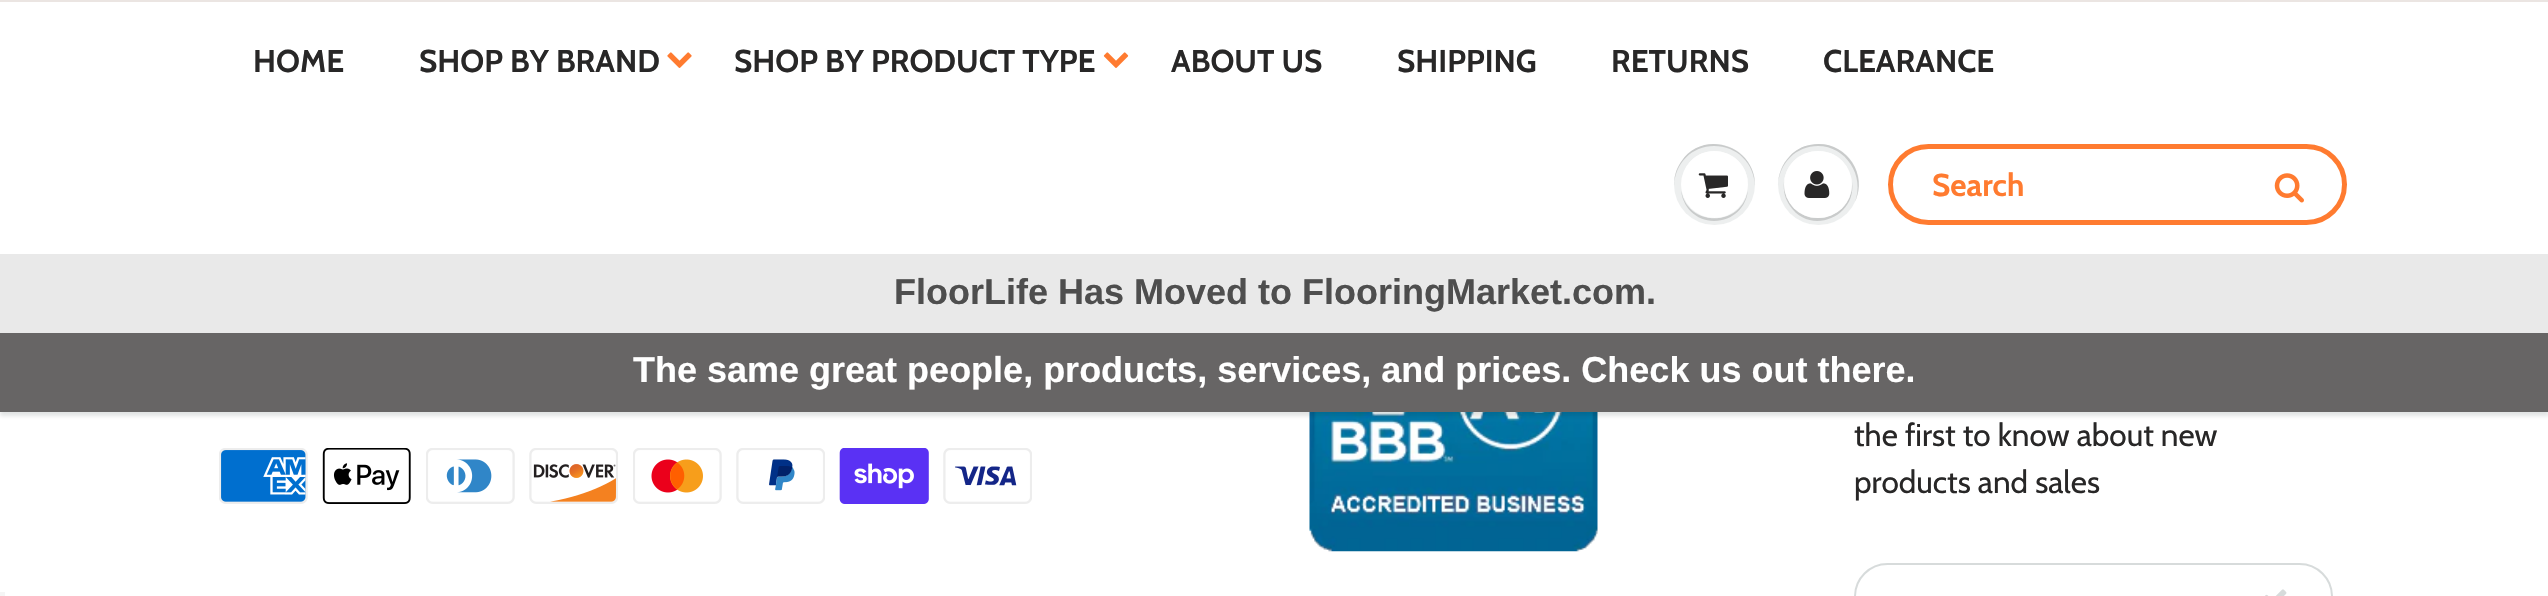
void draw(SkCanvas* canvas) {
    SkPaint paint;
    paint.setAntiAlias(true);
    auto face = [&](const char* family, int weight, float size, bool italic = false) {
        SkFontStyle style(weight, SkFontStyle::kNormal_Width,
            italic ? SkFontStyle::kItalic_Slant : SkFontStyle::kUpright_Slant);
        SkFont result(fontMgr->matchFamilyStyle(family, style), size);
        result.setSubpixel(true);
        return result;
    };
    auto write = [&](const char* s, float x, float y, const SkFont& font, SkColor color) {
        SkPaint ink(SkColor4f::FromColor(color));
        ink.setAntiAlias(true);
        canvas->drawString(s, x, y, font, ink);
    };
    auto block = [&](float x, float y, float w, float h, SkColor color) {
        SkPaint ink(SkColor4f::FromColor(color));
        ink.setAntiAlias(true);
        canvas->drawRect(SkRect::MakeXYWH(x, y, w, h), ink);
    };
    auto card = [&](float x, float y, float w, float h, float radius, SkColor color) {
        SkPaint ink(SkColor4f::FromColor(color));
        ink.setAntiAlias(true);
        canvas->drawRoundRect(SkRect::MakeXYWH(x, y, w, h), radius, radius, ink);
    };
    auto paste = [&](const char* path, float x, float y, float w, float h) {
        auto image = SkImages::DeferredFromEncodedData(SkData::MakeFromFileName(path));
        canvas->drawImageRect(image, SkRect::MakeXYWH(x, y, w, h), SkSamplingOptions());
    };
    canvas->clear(SK_ColorWHITE);
    paste("pic14.png", 1309, 412, 289, 140);
    paint.setColor(SkColorSetARGB(31, 11, 25, 28));
    paint.setMaskFilter(SkMaskFilter::MakeBlur(kNormal_SkBlurStyle, 2));
    canvas->drawRect(SkRect::MakeXYWH(0, 5, 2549, 411), paint);
    paint.setMaskFilter(nullptr);
    block(0, 2, 2548, 252, SK_ColorWHITE);
    block(0, 0, 2548, 2, SkColorSetRGB(235, 229, 226));
    auto kFont1 = face("Cabin", 700, 31.5f);
    write("HOME", 253, 72, kFont1, SkColorSetRGB(40, 39, 39));
    write("SHOP BY BRAND", 419, 72, kFont1, SkColorSetRGB(40, 39, 39));
    paste("pic1.png", 667, 52, 25, 16);
    write("SHOP BY PRODUCT TYPE", 734, 72, kFont1, SkColorSetRGB(40, 39, 39));
    paste("pic2.png", 1103, 52, 26, 16);
    write("ABOUT US", 1171, 72, kFont1, SkColorSetRGB(40, 39, 39));
    write("SHIPPING", 1397, 72, kFont1, SkColorSetRGB(40, 39, 39));
    write("RETURNS", 1611, 72, kFont1, SkColorSetRGB(40, 39, 39));
    write("CLEARANCE", 1823, 72, kFont1, SkColorSetRGB(40, 39, 39));
    paint.setColor(SkColorSetRGB(237, 239, 239));
    canvas->drawCircle(1714.5f, 184.5f, 40.5f, paint);
    paint.setColor(SkColorSetRGB(201, 203, 203));
    canvas->drawPath(SkPathBuilder().moveTo(1748, 189).cubicTo(1743, 228, 1686, 228, 1681, 189).cubicTo(1682, 207, 1696, 221, 1714, 221).cubicTo(1733, 221, 1747, 207, 1748, 189).close().detach(), paint);
    canvas->drawPath(SkPathBuilder().moveTo(1714, 146).cubicTo(1737, 146, 1754, 163, 1755, 186).cubicTo(1756, 146, 1703, 128, 1681, 162).cubicTo(1676, 169, 1674, 177, 1674, 186).cubicTo(1675, 163, 1692, 146, 1714, 146).close().detach(), paint);
    paint.setColor(SK_ColorWHITE);
    canvas->drawCircle(1714.5f, 184.5f, 33.5f, paint);
    canvas->drawPath(SkPathBuilder().moveTo(1714, 153).cubicTo(1733, 153, 1747, 167, 1748, 186).cubicTo(1749, 152, 1705, 138, 1687, 166).cubicTo(1683, 172, 1681, 179, 1681, 186).cubicTo(1682, 167, 1696, 153, 1714, 153).close().detach(), paint);
    paste("pic3.png", 1698, 173, 30, 25);
    paint.setColor(SkColorSetRGB(237, 239, 239));
    canvas->drawCircle(1818.5f, 184.5f, 40.5f, paint);
    paint.setColor(SkColorSetRGB(201, 203, 203));
    canvas->drawPath(SkPathBuilder().moveTo(1818, 146).cubicTo(1846, 146, 1865, 176, 1855, 202).cubicTo(1869, 172, 1843, 138, 1810, 145).cubicTo(1803, 146, 1795, 150, 1790, 156).cubicTo(1782, 164, 1778, 175, 1778, 186).cubicTo(1779, 163, 1796, 146, 1818, 146).close().detach(), paint);
    canvas->drawPath(SkPathBuilder().moveTo(1784, 182).cubicTo(1783, 191, 1785, 199, 1790, 206).cubicTo(1810, 236, 1857, 217, 1852, 182).cubicTo(1854, 216, 1809, 232, 1790, 203).cubicTo(1786, 197, 1784, 190, 1784, 182).close().detach(), paint);
    card(1784, 151, 68, 67, 33.5f, SK_ColorWHITE);
    paint.setColor(SK_ColorWHITE);
    canvas->drawPath(SkPathBuilder().moveTo(1818, 153).cubicTo(1837, 153, 1851, 167, 1852, 186).cubicTo(1852, 179, 1850, 172, 1846, 166).cubicTo(1828, 138, 1783, 152, 1784, 186).cubicTo(1785, 167, 1799, 153, 1818, 153).close().detach(), paint);
    paste("pic4.png", 1804, 171, 26, 27);
    paint.setStyle(SkPaint::kStroke_Style);
    paint.setStrokeWidth(5);
    paint.setColor(SkColorSetRGB(255, 123, 48));
    canvas->drawRoundRect(SkRect::MakeXYWH(1890.5f, 146.5f, 454, 76), 38, 38, paint);
    write("Search", 1932, 196, kFont1, SkColorSetRGB(255, 123, 48));
    paste("pic5.png", 2274, 173, 30, 30);
    block(0, 254, 2547, 79, SkColorSetRGB(233, 233, 233));
    auto kFont2 = face("Liberation Sans", 700, 36);
    write("FloorLife Has Moved to FlooringMarket.com.", 894, 304, kFont2, SkColorSetRGB(78, 78, 78));
    block(0, 333, 2548, 79, SkColorSetRGB(103, 101, 101));
    write("The same great people, products, services, and prices. Check us out there.", 633, 382, kFont2, SK_ColorWHITE);
    paste("pic6.png", 219, 448, 89, 56);
    paste("pic7.png", 322, 448, 89, 56);
    paste("pic8.png", 426, 448, 89, 56);
    paste("pic9.png", 529, 448, 89, 56);
    paste("pic10.png", 633, 448, 89, 56);
    paste("pic11.png", 736, 448, 89, 56);
    paste("pic12.png", 839, 448, 90, 56);
    paste("pic13.png", 943, 448, 89, 56);
    auto kFont3 = face("Cabin", 400, 31.5f);
    write("the first to know about new", 1854, 446, kFont3, SkColorSetRGB(40, 39, 39));
    write("products and sales", 1854, 493, kFont3, SkColorSetRGB(40, 39, 39));
    paint.setStrokeWidth(2);
    paint.setColor(SkColorSetRGB(215, 219, 219));
    canvas->drawRoundRect(SkRect::MakeXYWH(1855, 564, 477, 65), 32.5f, 32.5f, paint);
    paste("pic15.png", 2265, 589, 22, 7);
    block(0, 592, 5, 4, SkColorSetRGB(245, 245, 245));
}
